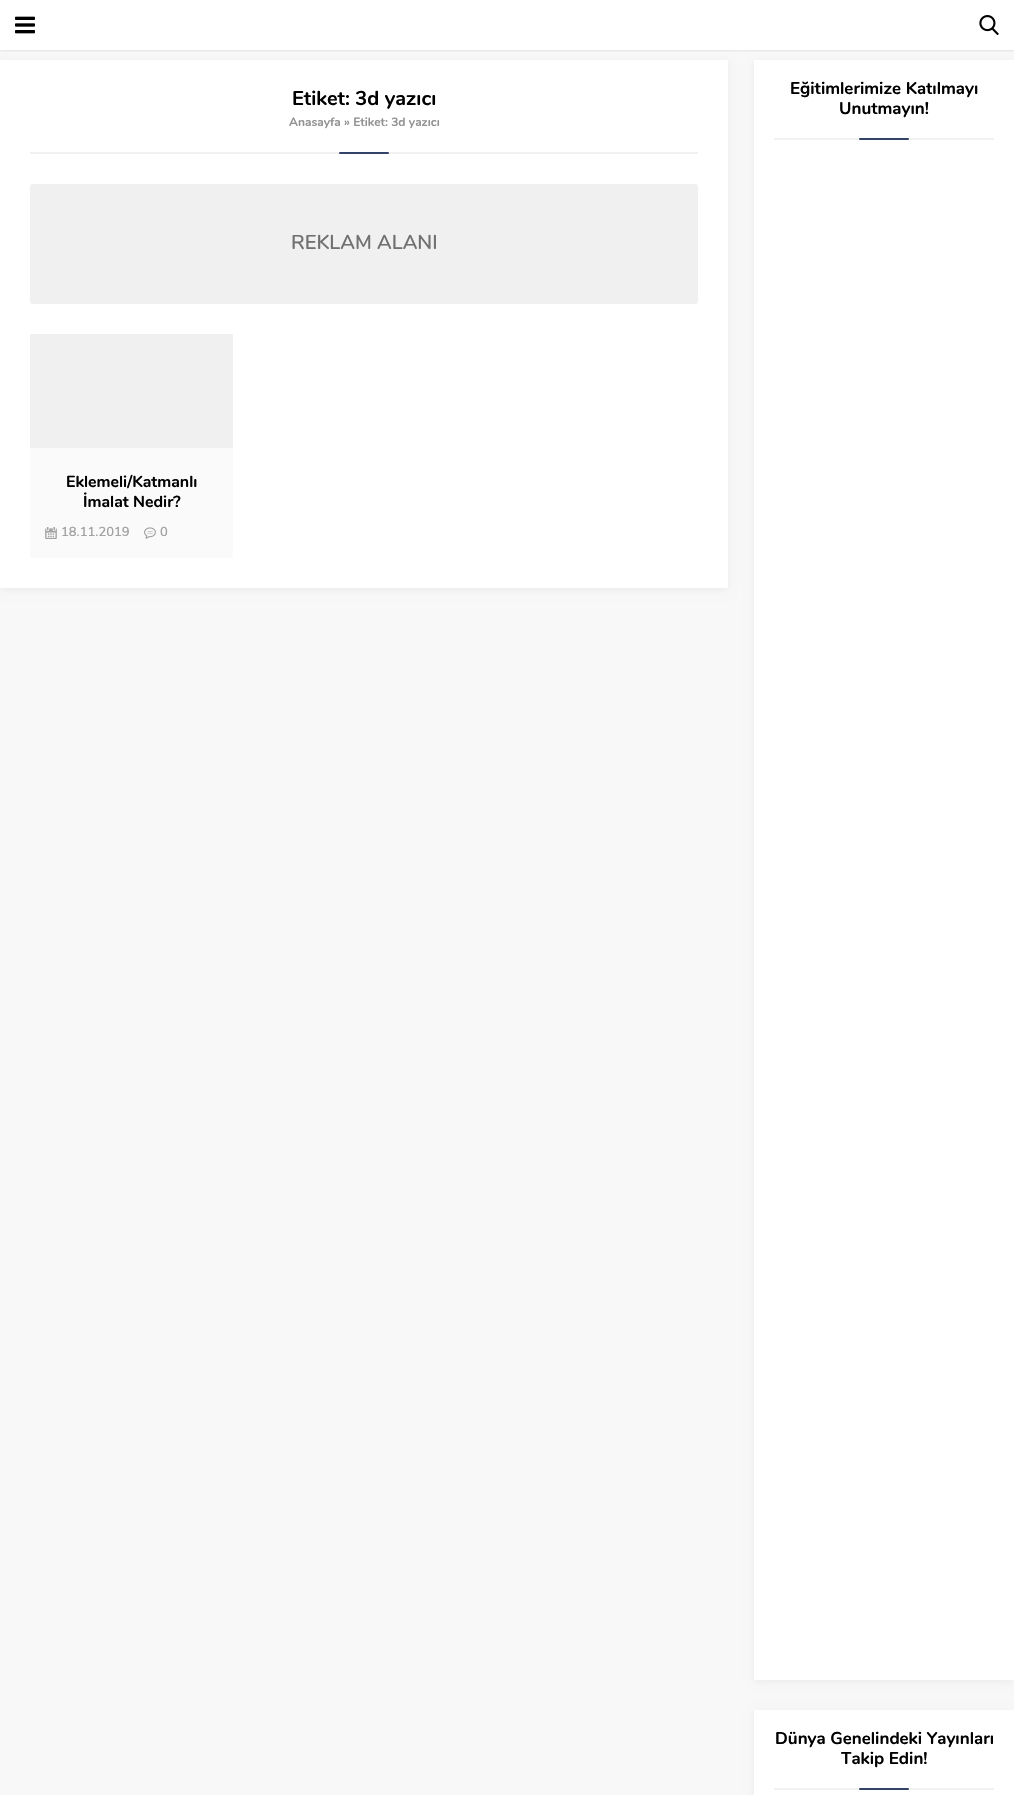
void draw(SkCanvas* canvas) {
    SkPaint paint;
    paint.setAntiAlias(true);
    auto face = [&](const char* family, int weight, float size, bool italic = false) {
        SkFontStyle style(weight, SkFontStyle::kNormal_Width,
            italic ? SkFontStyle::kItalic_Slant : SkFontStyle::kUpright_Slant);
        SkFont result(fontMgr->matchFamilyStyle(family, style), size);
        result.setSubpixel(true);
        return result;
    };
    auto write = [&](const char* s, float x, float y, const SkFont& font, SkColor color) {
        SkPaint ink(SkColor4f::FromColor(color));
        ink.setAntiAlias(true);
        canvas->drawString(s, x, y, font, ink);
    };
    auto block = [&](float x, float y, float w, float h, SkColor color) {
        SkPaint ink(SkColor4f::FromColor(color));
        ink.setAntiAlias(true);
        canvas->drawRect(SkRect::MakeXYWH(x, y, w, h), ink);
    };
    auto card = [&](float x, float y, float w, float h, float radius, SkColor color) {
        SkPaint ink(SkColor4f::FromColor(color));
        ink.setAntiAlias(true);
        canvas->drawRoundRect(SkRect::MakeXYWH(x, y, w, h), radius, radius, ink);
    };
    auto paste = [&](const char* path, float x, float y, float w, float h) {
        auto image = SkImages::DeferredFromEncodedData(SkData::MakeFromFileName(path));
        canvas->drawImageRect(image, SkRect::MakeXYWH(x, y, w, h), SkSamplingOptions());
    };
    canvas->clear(SkColorSetRGB(248, 248, 248));
    paint.setColor(SkColorSetARGB(13, 0, 0, 0));
    paint.setMaskFilter(SkMaskFilter::MakeBlur(kNormal_SkBlurStyle, 4));
    canvas->drawRect(SkRect::MakeXYWH(0, 62, 728, 528), paint);
    paint.setMaskFilter(nullptr);
    paint.setMaskFilter(SkMaskFilter::MakeBlur(kNormal_SkBlurStyle, 4));
    canvas->drawRect(SkRect::MakeXYWH(754, 62, 260, 1620), paint);
    paint.setMaskFilter(nullptr);
    block(0, 0, 1014, 50, SK_ColorWHITE);
    canvas->save();
    canvas->clipRect(SkRect::MakeXYWH(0, 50, 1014, 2));
    paint.setColor(SkColorSetARGB(38, 0, 0, 0));
    paint.setMaskFilter(SkMaskFilter::MakeBlur(kNormal_SkBlurStyle, 1.5f));
    canvas->drawRect(SkRect::MakeXYWH(0, 0, 1014, 50), paint);
    paint.setMaskFilter(nullptr);
    canvas->restore();
    paste("pic1.png", 15, 16, 20, 18);
    paste("pic2.png", 979, 15, 20, 20);
    block(0, 60, 728, 528, SK_ColorWHITE);
    auto kFont1 = face("Nunito", 700, 20);
    write("Etiket: 3d yazıcı", 292, 105, kFont1, SK_ColorBLACK);
    auto kFont2 = face("Nunito", 700, 12);
    write("Anasayfa » Etiket: 3d yazıcı", 289, 126, kFont2, SkColorSetRGB(146, 146, 146));
    block(30, 152, 668, 2, SkColorSetRGB(241, 241, 241));
    card(339, 152, 50, 2, 1, SkColorSetRGB(51, 67, 104));
    card(30, 184, 668, 120, 3, SkColorSetRGB(240, 240, 240));
    auto kFont3 = face("Nunito", 600, 20);
    write("REKLAM ALANI", 291, 249, kFont3, SkColorSetRGB(113, 113, 113));
    block(30, 448, 203, 110, SkColorSetRGB(250, 250, 250));
    block(30, 334, 203, 114, SkColorSetRGB(240, 240, 240));
    auto kFont4 = face("Nunito", 700, 16);
    write("Eklemeli/Katmanlı", 66, 487, kFont4, SK_ColorBLACK);
    write("İmalat Nedir?", 83, 507, kFont4, SK_ColorBLACK);
    paste("pic3.png", 45, 527, 12, 12);
    auto kFont5 = face("Nunito", 600, 13);
    write("18.11.2019", 61, 536, kFont5, SkColorSetRGB(162, 162, 162));
    paste("pic4.png", 144, 527, 12, 12);
    write("0", 160, 536, kFont5, SkColorSetRGB(162, 162, 162));
    block(754, 60, 260, 1620, SK_ColorWHITE);
    auto kFont6 = face("Nunito", 700, 17);
    write("Eğitimlerimize Katılmayı", 790, 94, kFont6, SK_ColorBLACK);
    write("Unutmayın!", 839, 114, kFont6, SK_ColorBLACK);
    block(774, 138, 220, 2, SkColorSetRGB(241, 241, 241));
    card(859, 138, 50, 2, 1, SkColorSetRGB(51, 67, 104));
    paint.setColor(SkColorSetARGB(13, 0, 0, 0));
    paint.setMaskFilter(SkMaskFilter::MakeBlur(kNormal_SkBlurStyle, 4));
    canvas->drawRect(SkRect::MakeXYWH(754, 1712, 260, 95), paint);
    paint.setMaskFilter(nullptr);
    block(754, 1710, 260, 85, SK_ColorWHITE);
    write("Dünya Genelindeki Yayınları", 775, 1744, kFont6, SK_ColorBLACK);
    write("Takip Edin!", 841, 1764, kFont6, SK_ColorBLACK);
    block(774, 1788, 220, 2, SkColorSetRGB(241, 241, 241));
    card(859, 1788, 50, 2, 1, SkColorSetRGB(51, 67, 104));
}
